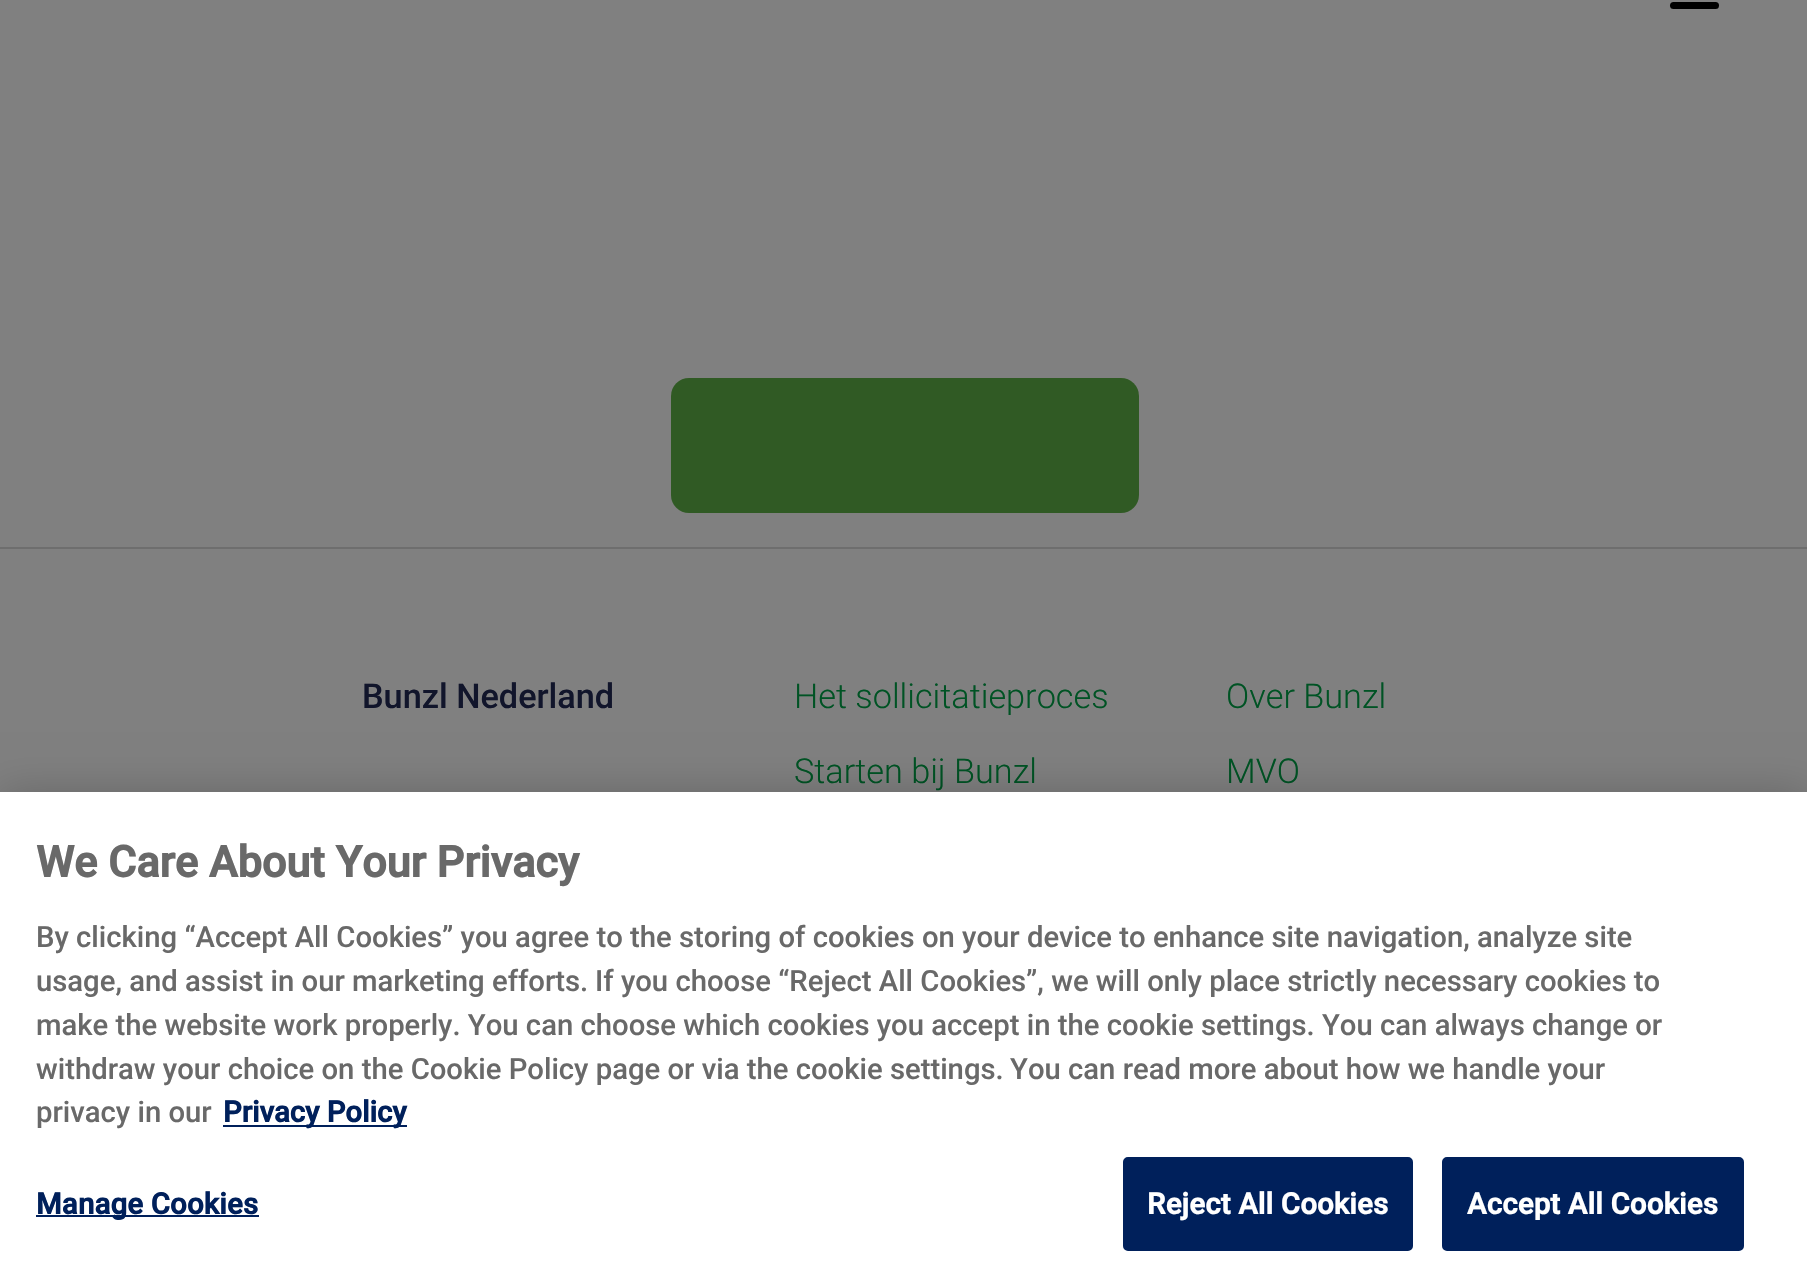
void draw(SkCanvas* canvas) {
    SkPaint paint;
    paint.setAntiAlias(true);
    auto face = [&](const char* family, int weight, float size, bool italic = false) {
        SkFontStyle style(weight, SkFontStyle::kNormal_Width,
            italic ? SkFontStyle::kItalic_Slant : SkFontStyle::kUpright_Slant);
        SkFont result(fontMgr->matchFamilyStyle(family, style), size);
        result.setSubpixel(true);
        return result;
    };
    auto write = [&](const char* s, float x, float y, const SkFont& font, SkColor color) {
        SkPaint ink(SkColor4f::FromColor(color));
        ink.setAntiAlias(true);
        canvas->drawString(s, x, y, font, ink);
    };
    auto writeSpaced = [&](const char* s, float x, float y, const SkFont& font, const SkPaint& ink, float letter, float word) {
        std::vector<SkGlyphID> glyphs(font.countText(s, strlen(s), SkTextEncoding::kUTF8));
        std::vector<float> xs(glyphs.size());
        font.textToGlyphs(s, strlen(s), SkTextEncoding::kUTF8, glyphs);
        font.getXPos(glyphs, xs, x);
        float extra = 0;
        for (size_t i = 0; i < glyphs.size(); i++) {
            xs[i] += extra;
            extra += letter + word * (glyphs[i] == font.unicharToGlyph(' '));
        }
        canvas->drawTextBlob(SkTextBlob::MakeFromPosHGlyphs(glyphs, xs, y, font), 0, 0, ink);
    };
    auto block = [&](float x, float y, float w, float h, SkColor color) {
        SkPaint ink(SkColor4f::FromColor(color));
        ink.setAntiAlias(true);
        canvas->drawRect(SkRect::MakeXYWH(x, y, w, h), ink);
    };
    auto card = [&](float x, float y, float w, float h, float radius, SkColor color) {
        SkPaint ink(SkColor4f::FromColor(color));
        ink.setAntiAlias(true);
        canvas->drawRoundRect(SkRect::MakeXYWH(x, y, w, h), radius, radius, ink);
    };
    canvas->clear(SkColorSetRGB(128, 128, 128));
    card(1670, 2, 49, 7, 3.5f, SK_ColorBLACK);
    card(671, 378, 468, 135, 18, SkColorSetRGB(48, 90, 36));
    block(0, 547, 1807, 2, SkColorSetRGB(110, 110, 110));
    auto kFont1 = face("Roboto", 500, 34.25f);
    write("Bunzl Nederland", 362, 708, kFont1, SkColorSetRGB(17, 21, 43));
    auto kFont2 = face("Roboto", 300, 34.25f);
    write("Het sollicitatieproces", 794, 708, kFont2, SkColorSetRGB(0, 83, 36));
    write("Starten bij Bunzl", 794, 783, kFont2, SkColorSetRGB(0, 83, 36));
    write("Over Bunzl", 1226, 708, kFont2, SkColorSetRGB(0, 83, 36));
    write("MVO", 1226, 783, kFont2, SkColorSetRGB(0, 83, 36));
    paint.setColor(SkColorSetARGB(51, 0, 0, 0));
    paint.setMaskFilter(SkMaskFilter::MakeBlur(kNormal_SkBlurStyle, 20));
    canvas->drawRect(SkRect::MakeXYWH(0, 792, 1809, 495), paint);
    paint.setMaskFilter(nullptr);
    block(0, 792, 1807, 494, SK_ColorWHITE);
    auto kFont3 = face("Roboto", 700, 43.25f);
    write("We Care About Your Privacy", 36, 877, kFont3, SkColorSetRGB(105, 105, 105));
    auto kFont4 = face("Roboto", 500, 29.27f);
    write("By clicking “Accept All Cookies” you agree to the storing of cookies on your device to enhance site navigation, analyze site", 36, 947, kFont4, SkColorSetRGB(105, 105, 105));
    write("usage, and assist in our marketing efforts.", 36, 991, kFont4, SkColorSetRGB(105, 105, 105));
    write("If you choose “Reject All Cookies”, we will only place strictly necessary cookies to", 595, 991, kFont4, SkColorSetRGB(105, 105, 105));
    write("make the website work properly. You can choose which cookies you accept in the cookie settings. You can always change or", 36, 1035, kFont4, SkColorSetRGB(105, 105, 105));
    write("withdraw your choice on the Cookie Policy page or via the cookie settings.", 36, 1079, kFont4, SkColorSetRGB(105, 105, 105));
    write("You can read more about how we handle your", 1010, 1079, kFont4, SkColorSetRGB(105, 105, 105));
    write("privacy in our", 36, 1122, kFont4, SkColorSetRGB(105, 105, 105));
    block(223, 1125, 184, 2, SkColorSetRGB(0, 32, 91));
    auto kFont5 = face("Roboto", 700, 29.27f);
    write("Privacy Policy", 223, 1122, kFont5, SkColorSetRGB(0, 32, 91));
    block(36, 1215, 223, 2, SkColorSetRGB(0, 32, 91));
    paint.setColor(SkColorSetRGB(0, 32, 91));
    writeSpaced("Manage Cookies", 36, 1214, kFont5, paint, 0.25f, 0);
    canvas->drawRoundRect(SkRect::MakeXYWH(1124, 1158, 288, 92), 4, 4, paint);
    paint.setStyle(SkPaint::kStroke_Style);
    paint.setStrokeWidth(2);
    canvas->drawRoundRect(SkRect::MakeXYWH(1124, 1158, 288, 92), 4, 4, paint);
    paint.setStyle(SkPaint::kFill_Style);
    paint.setColor(SK_ColorWHITE);
    writeSpaced("Reject All Cookies", 1147, 1214, kFont5, paint, 0.25f, 0);
    paint.setColor(SkColorSetRGB(0, 32, 91));
    canvas->drawRoundRect(SkRect::MakeXYWH(1443, 1158, 300, 92), 4, 4, paint);
    paint.setStyle(SkPaint::kStroke_Style);
    canvas->drawRoundRect(SkRect::MakeXYWH(1443, 1158, 300, 92), 4, 4, paint);
    paint.setStyle(SkPaint::kFill_Style);
    paint.setColor(SK_ColorWHITE);
    writeSpaced("Accept All Cookies", 1467, 1214, kFont5, paint, 0.25f, 0);
}
